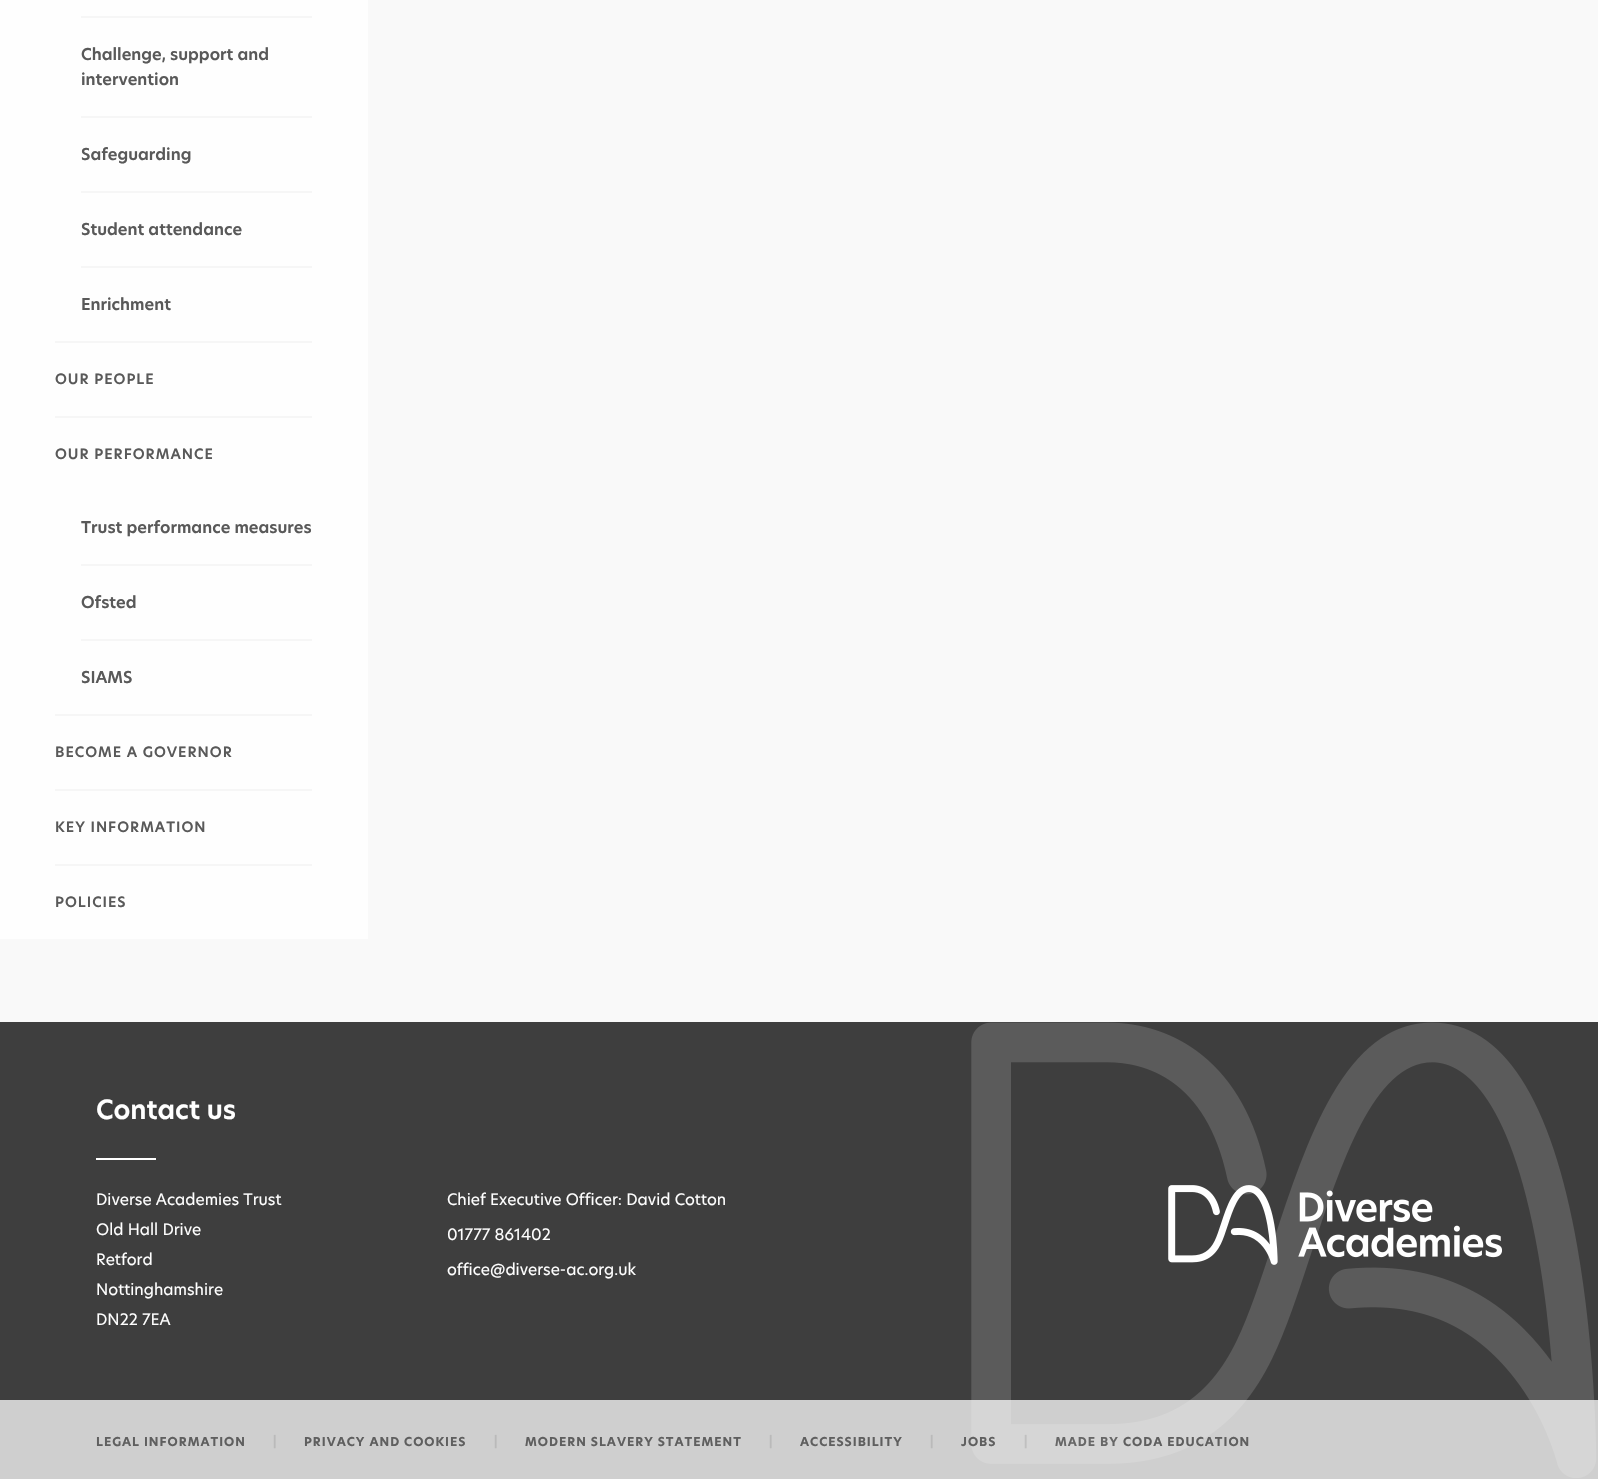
void draw(SkCanvas* canvas) {
    SkPaint paint;
    paint.setAntiAlias(true);
    auto face = [&](const char* family, int weight, float size, bool italic = false) {
        SkFontStyle style(weight, SkFontStyle::kNormal_Width,
            italic ? SkFontStyle::kItalic_Slant : SkFontStyle::kUpright_Slant);
        SkFont result(fontMgr->matchFamilyStyle(family, style), size);
        result.setSubpixel(true);
        return result;
    };
    auto write = [&](const char* s, float x, float y, const SkFont& font, SkColor color) {
        SkPaint ink(SkColor4f::FromColor(color));
        ink.setAntiAlias(true);
        canvas->drawString(s, x, y, font, ink);
    };
    auto writeSpaced = [&](const char* s, float x, float y, const SkFont& font, const SkPaint& ink, float letter, float word) {
        std::vector<SkGlyphID> glyphs(font.countText(s, strlen(s), SkTextEncoding::kUTF8));
        std::vector<float> xs(glyphs.size());
        font.textToGlyphs(s, strlen(s), SkTextEncoding::kUTF8, glyphs);
        font.getXPos(glyphs, xs, x);
        float extra = 0;
        for (size_t i = 0; i < glyphs.size(); i++) {
            xs[i] += extra;
            extra += letter + word * (glyphs[i] == font.unicharToGlyph(' '));
        }
        canvas->drawTextBlob(SkTextBlob::MakeFromPosHGlyphs(glyphs, xs, y, font), 0, 0, ink);
    };
    auto block = [&](float x, float y, float w, float h, SkColor color) {
        SkPaint ink(SkColor4f::FromColor(color));
        ink.setAntiAlias(true);
        canvas->drawRect(SkRect::MakeXYWH(x, y, w, h), ink);
    };
    auto paste = [&](const char* path, float x, float y, float w, float h) {
        auto image = SkImages::DeferredFromEncodedData(SkData::MakeFromFileName(path));
        canvas->drawImageRect(image, SkRect::MakeXYWH(x, y, w, h), SkSamplingOptions());
    };
    canvas->clear(SkColorSetRGB(249, 249, 249));
    block(0, 0, 368, 939, SkColorSetRGB(254, 254, 254));
    block(55, 341, 257, 2, SkColorSetRGB(246, 246, 246));
    block(81, 16, 231, 2, SkColorSetRGB(246, 246, 246));
    block(81, 116, 231, 2, SkColorSetRGB(246, 246, 246));
    auto kFont1 = face("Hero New", 600, 16);
    write("Challenge, support and", 81, 60, kFont1, SkColorSetRGB(89, 89, 89));
    write("intervention", 81, 85, kFont1, SkColorSetRGB(89, 89, 89));
    block(81, 191, 231, 2, SkColorSetRGB(246, 246, 246));
    write("Safeguarding", 81, 160, kFont1, SkColorSetRGB(89, 89, 89));
    block(81, 266, 231, 2, SkColorSetRGB(246, 246, 246));
    write("Student attendance", 81, 235, kFont1, SkColorSetRGB(89, 89, 89));
    write("Enrichment", 81, 310, kFont1, SkColorSetRGB(89, 89, 89));
    block(55, 416, 257, 2, SkColorSetRGB(246, 246, 246));
    auto kFont2 = face("Hero New", 600, 14);
    paint.setColor(SkColorSetRGB(89, 89, 89));
    writeSpaced("OUR PEOPLE", 55, 384, kFont2, paint, 1, 0);
    block(55, 714, 257, 2, SkColorSetRGB(246, 246, 246));
    writeSpaced("OUR PERFORMANCE", 55, 459, kFont2, paint, 1, 0);
    block(81, 564, 231, 2, SkColorSetRGB(246, 246, 246));
    write("Trust performance measures", 81, 533, kFont1, SkColorSetRGB(89, 89, 89));
    block(81, 639, 231, 2, SkColorSetRGB(246, 246, 246));
    write("Ofsted", 81, 608, kFont1, SkColorSetRGB(89, 89, 89));
    write("SIAMS", 81, 683, kFont1, SkColorSetRGB(89, 89, 89));
    block(55, 789, 257, 2, SkColorSetRGB(246, 246, 246));
    writeSpaced("BECOME A GOVERNOR", 55, 757, kFont2, paint, 1, 0);
    block(55, 864, 257, 2, SkColorSetRGB(246, 246, 246));
    writeSpaced("KEY INFORMATION", 55, 832, kFont2, paint, 1, 0);
    writeSpaced("POLICIES", 55, 907, kFont2, paint, 1, 0);
    block(0, 1022, 1598, 457, SkColorSetRGB(62, 62, 62));
    auto kFont3 = face("Hero New", 600, 26);
    write("Contact us", 96, 1119, kFont3, SK_ColorWHITE);
    block(96, 1158, 60, 2, SK_ColorWHITE);
    auto kFont4 = face("Hero New", 400, 15.5f);
    write("Diverse Academies Trust", 96, 1205, kFont4, SK_ColorWHITE);
    write("Old Hall Drive", 96, 1235, kFont4, SK_ColorWHITE);
    write("Retford", 96, 1265, kFont4, SK_ColorWHITE);
    write("Nottinghamshire", 96, 1295, kFont4, SK_ColorWHITE);
    write("DN22 7EA", 96, 1325, kFont4, SK_ColorWHITE);
    write("Chief Executive Officer: David Cotton", 447, 1205, kFont4, SK_ColorWHITE);
    write("01777 861402", 447, 1240, kFont4, SK_ColorWHITE);
    write("office@diverse-ac.org.uk", 447, 1275, kFont4, SK_ColorWHITE);
    paste("pic2.png", 971, 1022, 626, 456);
    paste("pic1.png", 1168, 1185, 334, 80);
    block(0, 1400, 1598, 79, SkColorSetARGB(191, 255, 255, 255));
    auto kFont5 = face("Hero New", 700, 12);
    paint.setColor(SkColorSetRGB(95, 95, 95));
    writeSpaced("LEGAL INFORMATION", 96, 1446, kFont5, paint, 1, 0);
    paint.setColor(SkColorSetRGB(186, 186, 186));
    writeSpaced("|", 273, 1446, kFont5, paint, 1, 0);
    paint.setColor(SkColorSetRGB(95, 95, 95));
    writeSpaced("PRIVACY AND COOKIES", 304, 1446, kFont5, paint, 1, 0);
    paint.setColor(SkColorSetRGB(186, 186, 186));
    writeSpaced("|", 494, 1446, kFont5, paint, 1, 0);
    paint.setColor(SkColorSetRGB(95, 95, 95));
    writeSpaced("MODERN SLAVERY STATEMENT", 525, 1446, kFont5, paint, 1, 0);
    paint.setColor(SkColorSetRGB(186, 186, 186));
    writeSpaced("|", 769, 1446, kFont5, paint, 1, 0);
    paint.setColor(SkColorSetRGB(95, 95, 95));
    writeSpaced("ACCESSIBILITY", 800, 1446, kFont5, paint, 1, 0);
    paint.setColor(SkColorSetRGB(186, 186, 186));
    writeSpaced("|", 930, 1446, kFont5, paint, 1, 0);
    paint.setColor(SkColorSetRGB(95, 95, 95));
    writeSpaced("JOBS", 961, 1446, kFont5, paint, 1, 0);
    paint.setColor(SkColorSetRGB(192, 192, 192));
    writeSpaced("|", 1024, 1446, kFont5, paint, 1, 0);
    paint.setColor(SkColorSetRGB(103, 103, 103));
    writeSpaced("MADE BY", 1055, 1446, kFont5, paint, 1, 0);
    paint.setColor(SkColorSetRGB(95, 95, 95));
    writeSpaced("CODA EDUCATION", 1123, 1446, kFont5, paint, 1, 0);
}
